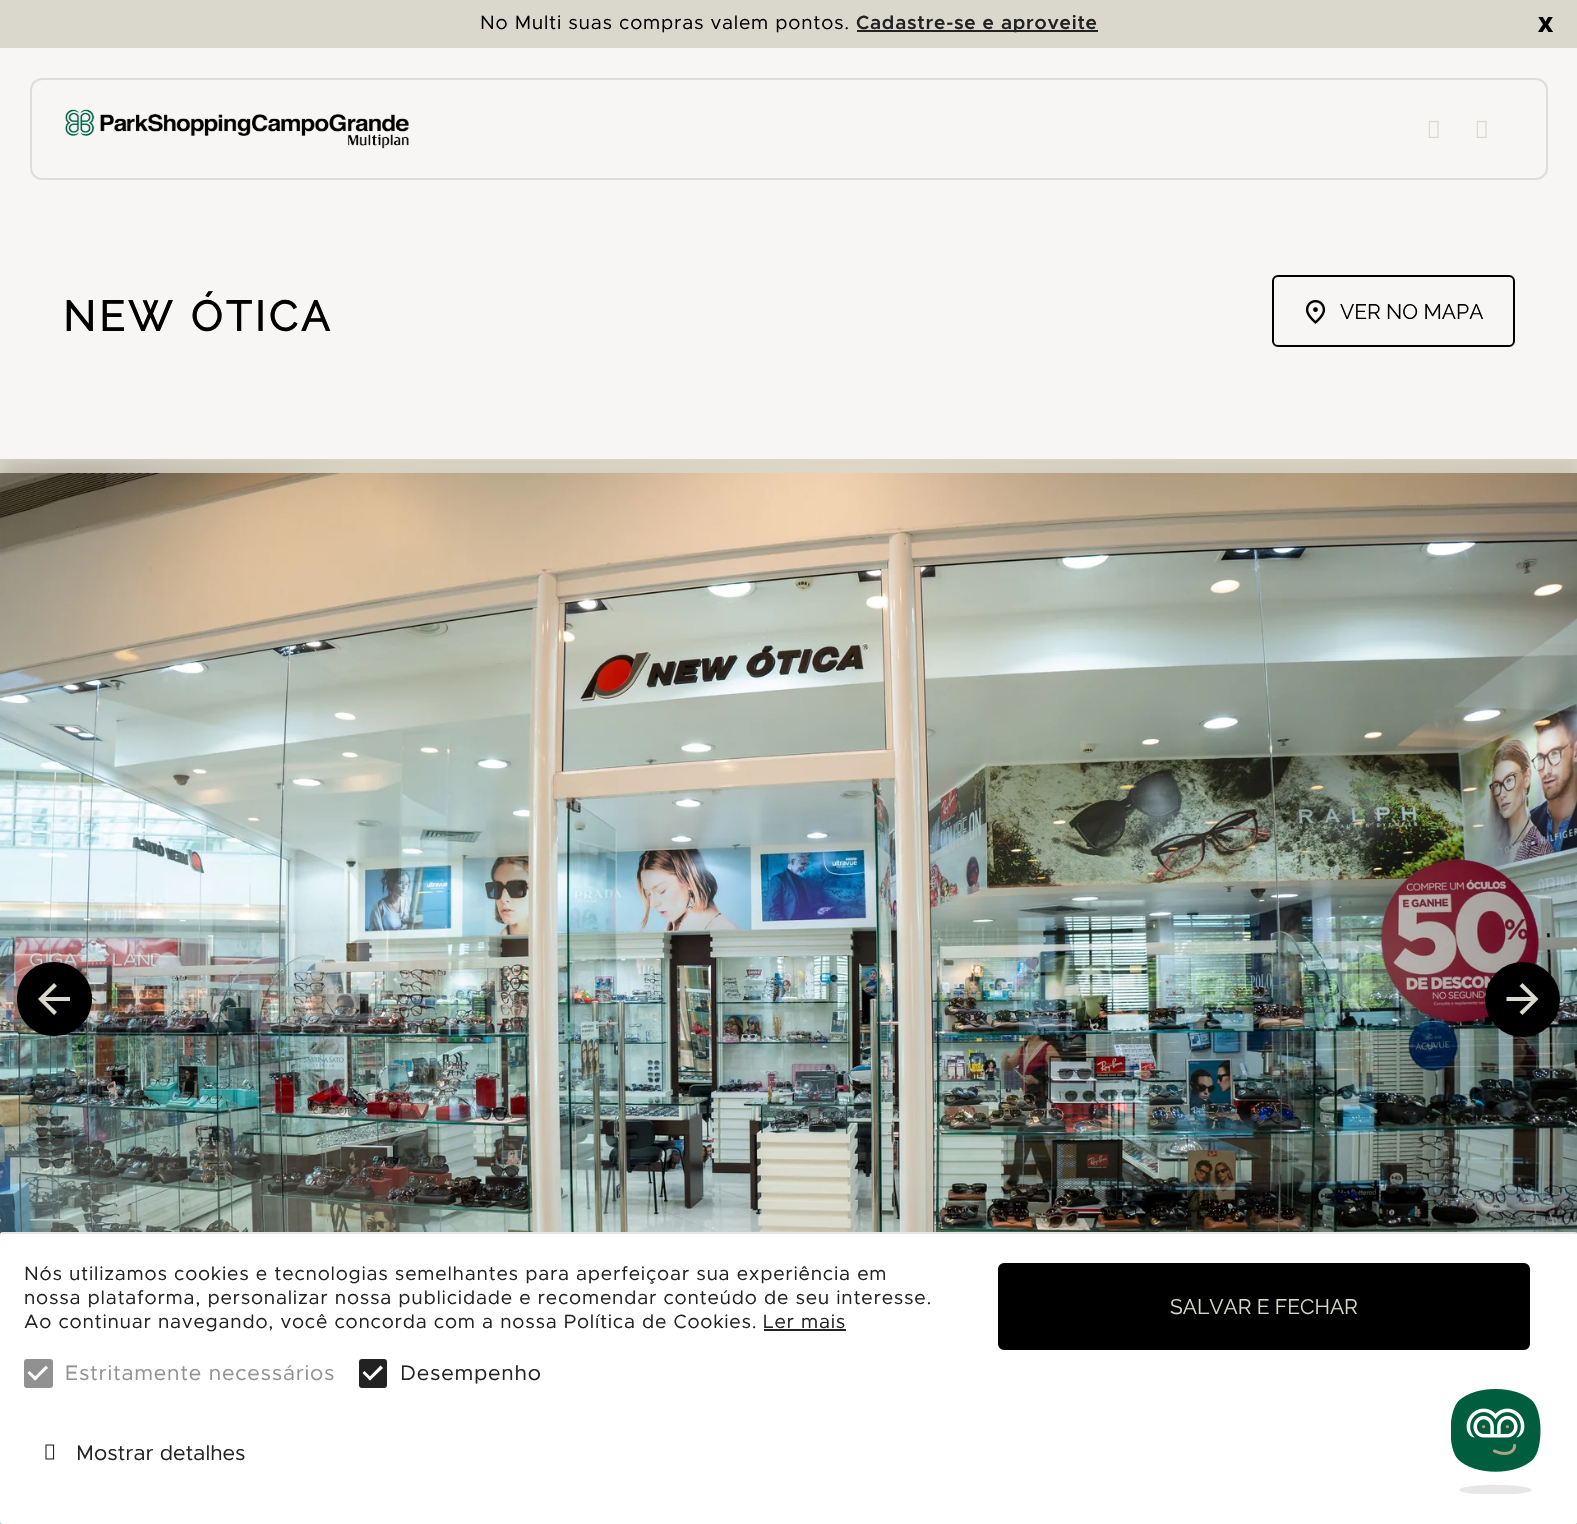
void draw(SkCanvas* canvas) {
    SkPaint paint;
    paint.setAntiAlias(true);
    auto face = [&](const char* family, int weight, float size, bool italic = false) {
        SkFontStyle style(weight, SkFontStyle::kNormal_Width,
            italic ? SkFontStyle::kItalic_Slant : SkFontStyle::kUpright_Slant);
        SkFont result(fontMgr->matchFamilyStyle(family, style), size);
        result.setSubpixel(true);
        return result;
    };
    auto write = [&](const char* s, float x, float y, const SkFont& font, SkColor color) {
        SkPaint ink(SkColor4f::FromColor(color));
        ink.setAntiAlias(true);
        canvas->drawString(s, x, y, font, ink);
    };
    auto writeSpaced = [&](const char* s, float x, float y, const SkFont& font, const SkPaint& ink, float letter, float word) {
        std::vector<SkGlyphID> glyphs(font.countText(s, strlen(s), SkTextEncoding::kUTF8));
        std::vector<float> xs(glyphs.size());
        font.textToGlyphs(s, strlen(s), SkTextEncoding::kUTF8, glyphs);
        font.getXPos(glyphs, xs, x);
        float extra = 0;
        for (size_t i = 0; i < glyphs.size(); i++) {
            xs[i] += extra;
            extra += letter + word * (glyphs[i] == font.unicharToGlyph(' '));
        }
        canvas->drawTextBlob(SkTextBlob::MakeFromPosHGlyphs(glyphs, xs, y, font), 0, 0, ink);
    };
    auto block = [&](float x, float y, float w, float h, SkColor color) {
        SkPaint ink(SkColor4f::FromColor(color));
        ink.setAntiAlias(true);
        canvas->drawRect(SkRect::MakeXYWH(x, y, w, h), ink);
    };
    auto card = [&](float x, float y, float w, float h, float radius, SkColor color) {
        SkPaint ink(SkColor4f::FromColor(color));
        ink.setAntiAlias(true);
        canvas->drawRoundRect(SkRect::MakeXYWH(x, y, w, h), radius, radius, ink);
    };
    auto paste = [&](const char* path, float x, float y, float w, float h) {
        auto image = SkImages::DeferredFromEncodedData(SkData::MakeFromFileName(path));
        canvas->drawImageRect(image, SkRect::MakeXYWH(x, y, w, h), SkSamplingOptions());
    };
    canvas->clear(SkColorSetRGB(247, 246, 244));
    paint.setStyle(SkPaint::kStroke_Style);
    paint.setStrokeWidth(2);
    paint.setColor(SkColorSetRGB(222, 221, 220));
    canvas->drawRoundRect(SkRect::MakeXYWH(31, 79, 1516, 100), 11, 11, paint);
    block(0, 0, 1577, 48, SkColorSetRGB(218, 216, 204));
    auto kFont1 = face("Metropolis", 400, 19.2f);
    paint.setStyle(SkPaint::kFill_Style);
    paint.setColor(SK_ColorBLACK);
    writeSpaced("No Multi suas compras valem pontos.", 480, 29, kFont1, paint, 0.75f, 0);
    block(857, 30, 241, 2, SkColorSetRGB(34, 34, 34));
    auto kFont2 = face("Metropolis", 600, 19.2f);
    paint.setColor(SkColorSetRGB(34, 34, 34));
    writeSpaced("Cadastre-se e aproveite", 856, 29, kFont2, paint, 0.75f, 0);
    auto kFont3 = face("Noto Sans", 900, 21);
    write("X", 1538, 32, kFont3, SK_ColorBLACK);
    paste("pic1.png", 65, 109, 344, 40);
    paste("pic2.png", 1428, 120, 11, 18);
    paste("pic2.png", 1476, 120, 11, 18);
    auto kFont4 = face("Raleway", 700, 42);
    paint.setColor(SK_ColorBLACK);
    writeSpaced("NEW ÓTICA", 63, 331, kFont4, paint, 3.5f, 1);
    paint.setStyle(SkPaint::kStroke_Style);
    canvas->drawRoundRect(SkRect::MakeXYWH(1273, 276, 241, 70), 5, 5, paint);
    paste("pic3.png", 1305, 300, 21, 24);
    auto kFont5 = face("Raleway", 400, 21);
    write("VER NO MAPA", 1340, 319, kFont5, SK_ColorBLACK);
    block(0, 459, 1577, 1065, SkColorSetRGB(218, 216, 204));
    paste("pic4.png", 0, 459, 1577, 1065);
    paste("pic5.png", 0, 473, 1577, 1051);
    paint.setStyle(SkPaint::kFill_Style);
    canvas->drawPath(SkPathBuilder().moveTo(54, 962).cubicTo(33, 962, 17, 978, 17, 999).cubicTo(17, 1020, 33, 1036, 54, 1036).cubicTo(75, 1036, 92, 1020, 92, 999).cubicTo(92, 978, 75, 962, 54, 962).close().detach(), paint);
    paint.setColor(SkColorSetRGB(218, 216, 204));
    canvas->drawPath(SkPathBuilder().moveTo(54, 983).lineTo(57, 986).lineTo(45.5f, 997).lineTo(70, 997).lineTo(70, 1001).lineTo(45.5f, 1001).lineTo(57, 1012).lineTo(54, 1015).lineTo(38, 999).close().detach(), paint);
    paint.setColor(SK_ColorBLACK);
    canvas->drawCircle(1522.5f, 999.5f, 37.5f, paint);
    paint.setColor(SkColorSetRGB(218, 216, 204));
    canvas->drawPath(SkPathBuilder().moveTo(1522.5f, 983).lineTo(1519.5f, 986).lineTo(1531, 997).lineTo(1506.5f, 997).lineTo(1506.5f, 1001).lineTo(1531, 1001).lineTo(1519.5f, 1012).lineTo(1522.5f, 1015).lineTo(1538.5f, 999).close().detach(), paint);
    card(0, 1232, 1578, 292, 3, SK_ColorWHITE);
    block(2, 1232, 1575, 2, SkColorSetARGB(26, 0, 0, 0));
    paint.setColor(SkColorSetRGB(34, 34, 34));
    writeSpaced("Nós utilizamos cookies e tecnologias semelhantes para aperfeiçoar sua experiência em", 24, 1280, kFont1, paint, 0.75f, 0);
    writeSpaced("nossa plataforma, personalizar nossa publicidade e recomendar conteúdo de seu interesse.", 24, 1304, kFont1, paint, 0.75f, 0);
    writeSpaced("Ao continuar navegando, você concorda com a nossa Política de Cookies.", 24, 1328, kFont1, paint, 0.75f, 0);
    writeSpaced("Ler mais", 763, 1328, kFont1, paint, 0.75f, 0);
    block(764, 1329, 82, 2, SkColorSetRGB(34, 34, 34));
    paint.setColor(SkColorSetRGB(145, 145, 145));
    canvas->drawRoundRect(SkRect::MakeXYWH(25.5f, 1360.5f, 26, 26), 1.5f, 1.5f, paint);
    paint.setStyle(SkPaint::kStroke_Style);
    paint.setStrokeWidth(3);
    canvas->drawRoundRect(SkRect::MakeXYWH(25.5f, 1360.5f, 26, 26), 1.5f, 1.5f, paint);
    auto kFont6 = face("Metropolis", 400, 21);
    paint.setStyle(SkPaint::kFill_Style);
    writeSpaced("Estritamente necessários", 65, 1380, kFont6, paint, 0.75f, 0);
    paint.setColor(SK_ColorWHITE);
    canvas->drawPath(SkPathBuilder().moveTo(33, 1378.5f).lineTo(46, 1365.5f).lineTo(48, 1368).lineTo(35, 1380.5f).close().detach(), paint);
    canvas->drawPath(SkPathBuilder().moveTo(27.5f, 1373).lineTo(29.5f, 1371).lineTo(37.5f, 1378.5f).lineTo(35, 1380.5f).close().detach(), paint);
    paint.setColor(SkColorSetRGB(34, 34, 34));
    canvas->drawRoundRect(SkRect::MakeXYWH(360.5f, 1360.5f, 25, 26), 1.5f, 1.5f, paint);
    paint.setStyle(SkPaint::kStroke_Style);
    canvas->drawRoundRect(SkRect::MakeXYWH(360.5f, 1360.5f, 25, 26), 1.5f, 1.5f, paint);
    paint.setStyle(SkPaint::kFill_Style);
    paint.setColor(SK_ColorWHITE);
    canvas->drawPath(SkPathBuilder().moveTo(368, 1378.5f).lineTo(380.5f, 1365.5f).lineTo(383, 1368).lineTo(370, 1380.5f).close().detach(), paint);
    canvas->drawPath(SkPathBuilder().moveTo(362.5f, 1373).lineTo(364.5f, 1371).lineTo(372, 1378.5f).lineTo(370, 1380.5f).close().detach(), paint);
    paint.setColor(SkColorSetRGB(34, 34, 34));
    writeSpaced("Desempenho", 400, 1380, kFont6, paint, 0.75f, 0);
    paste("pic6.png", 45, 1444, 10, 16);
    write("Mostrar detalhes", 76, 1460, kFont6, SkColorSetRGB(34, 34, 34));
    paint.setColor(SK_ColorBLACK);
    canvas->drawRoundRect(SkRect::MakeXYWH(999, 1264, 530, 85), 5, 5, paint);
    paint.setStyle(SkPaint::kStroke_Style);
    paint.setStrokeWidth(2);
    canvas->drawRoundRect(SkRect::MakeXYWH(999, 1264, 530, 85), 5, 5, paint);
    write("SALVAR E FECHAR", 1170, 1314, kFont5, SkColorSetRGB(218, 216, 204));
    paste("pic7.png", 1451, 1389, 90, 105);
}
